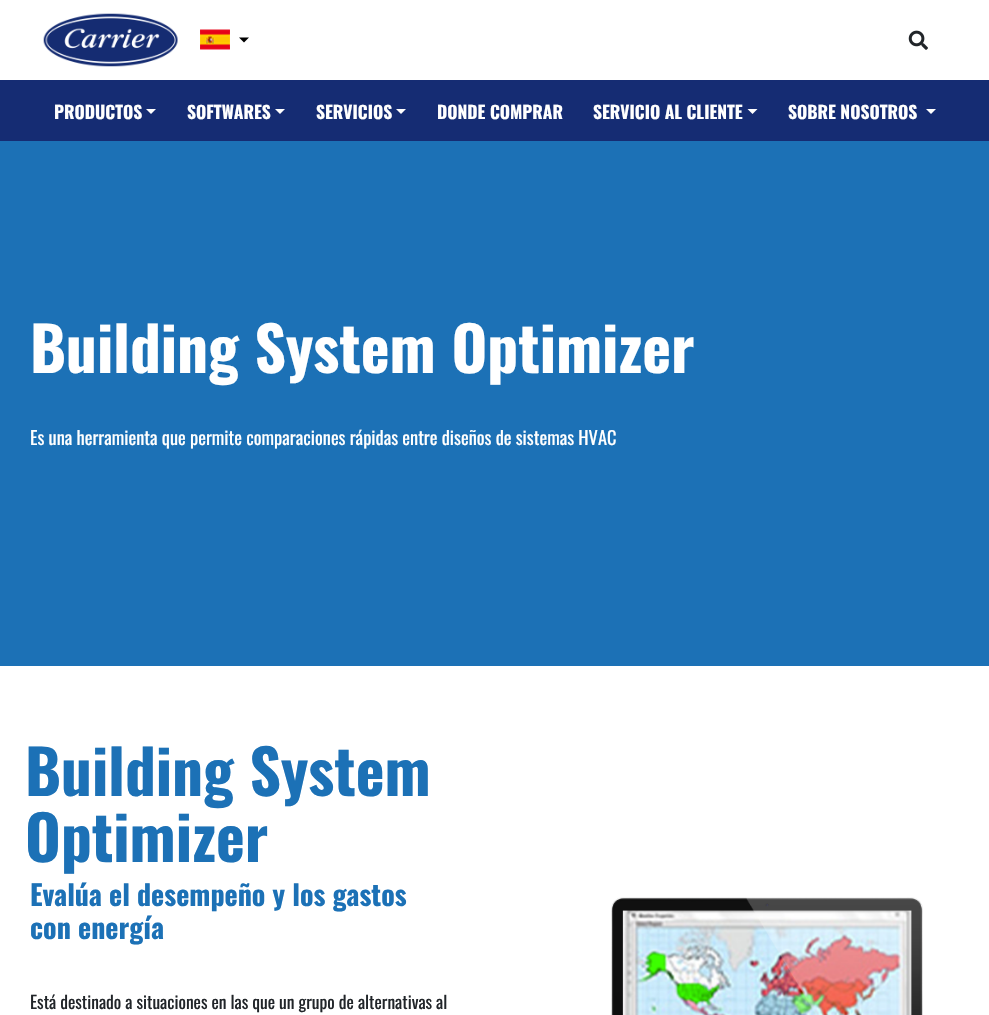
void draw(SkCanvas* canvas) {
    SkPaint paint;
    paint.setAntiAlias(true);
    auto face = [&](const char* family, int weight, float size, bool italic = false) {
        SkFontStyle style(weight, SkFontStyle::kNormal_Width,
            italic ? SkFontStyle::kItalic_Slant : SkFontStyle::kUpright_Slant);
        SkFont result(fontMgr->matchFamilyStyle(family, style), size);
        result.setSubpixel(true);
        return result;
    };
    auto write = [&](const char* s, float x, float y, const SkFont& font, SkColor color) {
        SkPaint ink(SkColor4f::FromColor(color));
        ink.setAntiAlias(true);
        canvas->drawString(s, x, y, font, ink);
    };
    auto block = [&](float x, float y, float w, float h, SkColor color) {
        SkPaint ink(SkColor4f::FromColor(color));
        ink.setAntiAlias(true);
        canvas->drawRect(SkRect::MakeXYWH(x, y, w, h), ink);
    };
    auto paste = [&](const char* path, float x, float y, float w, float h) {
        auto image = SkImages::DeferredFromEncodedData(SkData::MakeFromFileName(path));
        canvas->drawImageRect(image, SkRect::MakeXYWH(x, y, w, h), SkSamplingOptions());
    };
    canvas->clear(SK_ColorWHITE);
    paste("pic1.png", 43, 13, 135, 54);
    paste("pic2.png", 200, 29, 30, 21);
    paint.setColor(SK_ColorBLACK);
    canvas->drawPath(SkPathBuilder().moveTo(239, 37.5f).lineTo(249, 37.5f).lineTo(244, 42.5f).close().detach(), paint);
    paste("pic3.png", 908, 30, 20, 20);
    block(0, 80, 989, 61, SkColorSetRGB(21, 44, 115));
    auto kFont1 = face("Oswald", 700, 17.5f);
    write("PRODUCTOS", 54, 119, kFont1, SK_ColorWHITE);
    paint.setColor(SK_ColorWHITE);
    canvas->drawPath(SkPathBuilder().moveTo(146, 109).lineTo(156, 109).lineTo(151, 114).close().detach(), paint);
    write("SOFTWARES", 187, 119, kFont1, SK_ColorWHITE);
    canvas->drawPath(SkPathBuilder().moveTo(275, 109).lineTo(285, 109).lineTo(280, 114).close().detach(), paint);
    write("SERVICIOS", 316, 119, kFont1, SK_ColorWHITE);
    canvas->drawPath(SkPathBuilder().moveTo(396, 109).lineTo(406, 109).lineTo(401, 114).close().detach(), paint);
    write("DONDE COMPRAR", 437, 119, kFont1, SK_ColorWHITE);
    write("SERVICIO AL CLIENTE", 593, 119, kFont1, SK_ColorWHITE);
    canvas->drawPath(SkPathBuilder().moveTo(747.5f, 109).lineTo(757.5f, 109).lineTo(752.5f, 114).close().detach(), paint);
    write("SOBRE NOSOTROS", 788, 119, kFont1, SK_ColorWHITE);
    canvas->drawPath(SkPathBuilder().moveTo(926, 109).lineTo(936, 109).lineTo(931, 114).close().detach(), paint);
    block(0, 141, 989, 525, SkColorSetRGB(28, 113, 182));
    auto kFont2 = face("Oswald", 700, 61.25f);
    write("Building System Optimizer", 30, 373, kFont2, SK_ColorWHITE);
    auto kFont3 = face("Oswald", 400, 18.4f);
    write("Es una herramienta que permite comparaciones rápidas entre diseños de sistemas HVAC", 30, 445, kFont3, SK_ColorWHITE);
    write("Building System", 25, 796, kFont2, SkColorSetRGB(28, 113, 182));
    write("Optimizer", 25, 862, kFont2, SkColorSetRGB(28, 113, 182));
    auto kFont4 = face("Oswald", 700, 28);
    write("Evalúa el desempeño y los gastos", 30, 906, kFont4, SkColorSetRGB(28, 113, 182));
    write("con energía", 30, 939, kFont4, SkColorSetRGB(28, 113, 182));
    auto kFont5 = face("Oswald", 400, 17.5f);
    write("Está destinado a situaciones en las que un grupo de alternativas al", 30, 1009, kFont5, SkColorSetRGB(33, 37, 41));
    paste("pic4.png", 611, 897, 312, 118);
}
